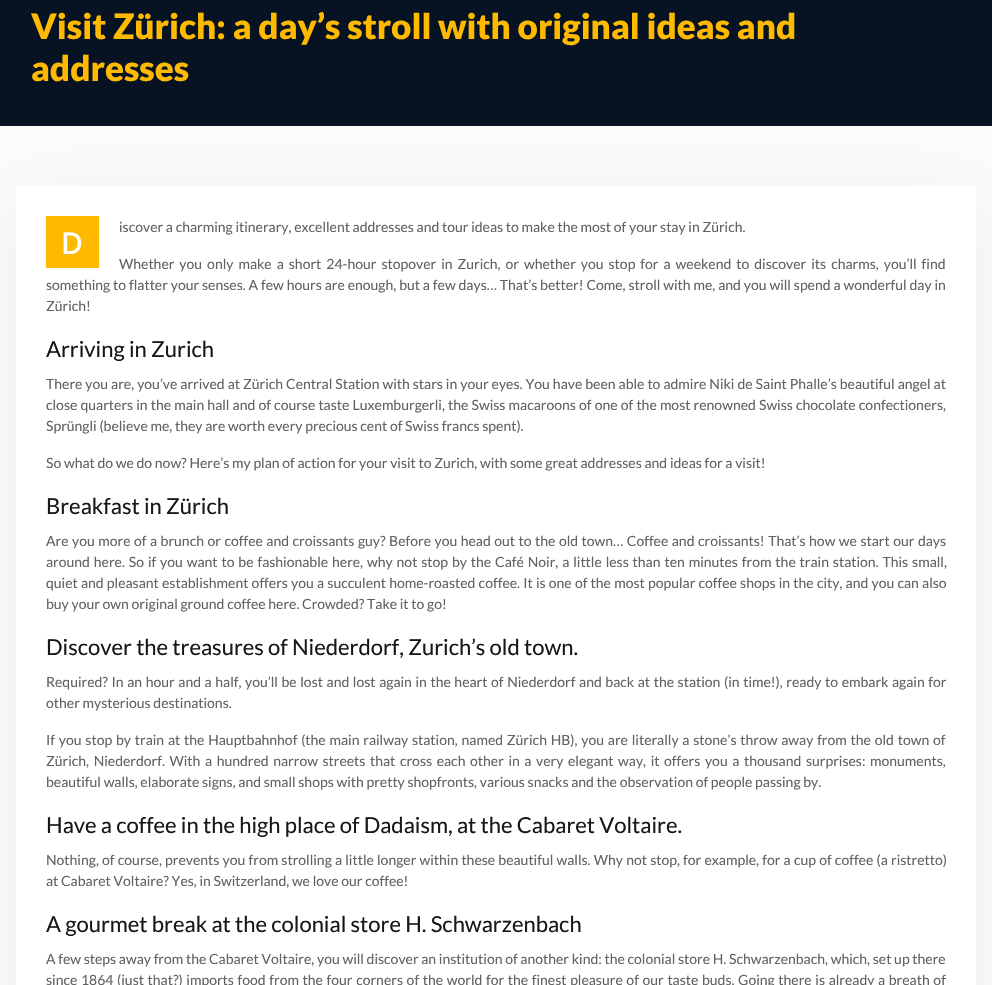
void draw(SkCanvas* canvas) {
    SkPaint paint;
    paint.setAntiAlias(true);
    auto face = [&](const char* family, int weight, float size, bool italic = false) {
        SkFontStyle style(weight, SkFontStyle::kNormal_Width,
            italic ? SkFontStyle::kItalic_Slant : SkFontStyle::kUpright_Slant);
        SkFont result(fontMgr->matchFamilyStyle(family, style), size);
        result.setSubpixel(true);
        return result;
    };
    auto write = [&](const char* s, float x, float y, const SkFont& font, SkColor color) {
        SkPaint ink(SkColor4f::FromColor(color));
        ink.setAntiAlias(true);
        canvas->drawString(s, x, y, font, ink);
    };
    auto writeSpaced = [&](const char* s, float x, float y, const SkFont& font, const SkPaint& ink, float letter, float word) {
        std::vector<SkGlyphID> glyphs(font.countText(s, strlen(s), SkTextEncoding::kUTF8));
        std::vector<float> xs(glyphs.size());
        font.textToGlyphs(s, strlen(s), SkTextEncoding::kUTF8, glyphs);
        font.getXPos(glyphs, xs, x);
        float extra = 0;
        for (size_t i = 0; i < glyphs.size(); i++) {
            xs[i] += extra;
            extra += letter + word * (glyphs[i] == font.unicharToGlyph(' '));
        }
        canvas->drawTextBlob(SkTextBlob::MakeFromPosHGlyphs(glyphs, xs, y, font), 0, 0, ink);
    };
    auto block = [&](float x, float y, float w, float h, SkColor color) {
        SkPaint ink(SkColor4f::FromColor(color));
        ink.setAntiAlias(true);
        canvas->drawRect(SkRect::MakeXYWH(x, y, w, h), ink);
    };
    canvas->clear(SkColorSetRGB(252, 252, 252));
    block(0, 0, 992, 126, SkColorSetRGB(7, 19, 35));
    auto kFont1 = face("Lato", 900, 35);
    write("Visit Zürich: a day’s stroll with original ideas and", 31, 39, kFont1, SkColorSetRGB(255, 186, 0));
    write("addresses", 31, 81, kFont1, SkColorSetRGB(255, 186, 0));
    paint.setColor(SkColorSetARGB(15, 0, 0, 0));
    paint.setMaskFilter(SkMaskFilter::MakeBlur(kNormal_SkBlurStyle, 38));
    canvas->drawRect(SkRect::MakeXYWH(16, 201, 960, 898), paint);
    paint.setMaskFilter(nullptr);
    block(16, 186, 960, 799, SK_ColorWHITE);
    auto kFont2 = face("Lato", 400, 14);
    write("iscover a charming itinerary, excellent addresses and tour ideas to make the most of your stay in Zürich.", 119, 232, kFont2, SkColorSetRGB(98, 98, 98));
    block(46, 216, 53, 52, SkColorSetRGB(255, 186, 0));
    auto kFont3 = face("Noto Sans", 500, 30);
    write("D", 61, 254, kFont3, SK_ColorWHITE);
    paint.setColor(SkColorSetRGB(98, 98, 98));
    writeSpaced("Whether you only make a short 24-hour stopover in Zurich, or whether you stop for a weekend to discover its charms, you’ll find", 119, 269, kFont2, paint, 0, 2.3f);
    writeSpaced("something to flatter your senses. A few hours are enough, but a few days… That’s better! Come, stroll with me, and you will spend a wonderful day in", 46, 290, kFont2, paint, 0, 0.2f);
    write("Zürich!", 46, 311, kFont2, SkColorSetRGB(98, 98, 98));
    auto kFont4 = face("Lato", 400, 22);
    write("Arriving in Zurich", 46, 357, kFont4, SkColorSetRGB(23, 23, 23));
    writeSpaced("There you are, you’ve arrived at Zürich Central Station with stars in your eyes. You have been able to admire Niki de Saint Phalle’s beautiful angel at", 46, 389, kFont2, paint, 0, 0.3f);
    writeSpaced("close quarters in the main hall and of course taste Luxemburgerli, the Swiss macaroons of one of the most renowned Swiss chocolate confectioners,", 46, 410, kFont2, paint, 0, 0.45f);
    write("Sprüngli (believe me, they are worth every precious cent of Swiss francs spent).", 46, 431, kFont2, SkColorSetRGB(98, 98, 98));
    write("So what do we do now? Here’s my plan of action for your visit to Zurich, with some great addresses and ideas for a visit!", 46, 468, kFont2, SkColorSetRGB(98, 98, 98));
    write("Breakfast in Zürich", 46, 514, kFont4, SkColorSetRGB(23, 23, 23));
    writeSpaced("Are you more of a brunch or coffee and croissants guy? Before you head out to the old town… Coffee and croissants! That’s how we start our days", 46, 546, kFont2, paint, 0, 0.8f);
    writeSpaced("around here. So if you want to be fashionable here, why not stop by the Café Noir, a little less than ten minutes from the train station. This small,", 46, 567, kFont2, paint, 0, 1.2f);
    writeSpaced("quiet and pleasant establishment offers you a succulent home-roasted coffee. It is one of the most popular coffee shops in the city, and you can also", 46, 588, kFont2, paint, 0, 0.5f);
    write("buy your own original ground coffee here. Crowded? Take it to go!", 46, 609, kFont2, SkColorSetRGB(98, 98, 98));
    write("Discover the treasures of Niederdorf, Zurich’s old town.", 46, 655, kFont4, SkColorSetRGB(23, 23, 23));
    writeSpaced("Required? In an hour and a half, you’ll be lost and lost again in the heart of Niederdorf and back at the station (in time!), ready to embark again for", 46, 687, kFont2, paint, 0, 0.9f);
    write("other mysterious destinations.", 46, 708, kFont2, SkColorSetRGB(98, 98, 98));
    writeSpaced("If you stop by train at the Hauptbahnhof (the main railway station, named Zürich HB), you are literally a stone’s throw away from the old town of", 46, 745, kFont2, paint, 0, 1.1f);
    writeSpaced("Zürich, Niederdorf. With a hundred narrow streets that cross each other in a very elegant way, it offers you a thousand surprises: monuments,", 46, 766, kFont2, paint, 0, 1.9f);
    write("beautiful walls, elaborate signs, and small shops with pretty shopfronts, various snacks and the observation of people passing by.", 46, 787, kFont2, SkColorSetRGB(98, 98, 98));
    write("Have a coffee in the high place of Dadaism, at the Cabaret Voltaire.", 46, 833, kFont4, SkColorSetRGB(23, 23, 23));
    writeSpaced("Nothing, of course, prevents you from strolling a little longer within these beautiful walls. Why not stop, for example, for a cup of coffee (a ristretto)", 46, 865, kFont2, paint, 0, 0.5f);
    write("at Cabaret Voltaire? Yes, in Switzerland, we love our coffee!", 46, 886, kFont2, SkColorSetRGB(98, 98, 98));
    write("A gourmet break at the colonial store H. Schwarzenbach", 46, 932, kFont4, SkColorSetRGB(23, 23, 23));
    write("A few steps away from the Cabaret Voltaire, you will discover an institution of another kind: the colonial store H. Schwarzenbach, which, set up there", 46, 964, kFont2, SkColorSetRGB(98, 98, 98));
    writeSpaced("since 1864 (just that?) imports food from the four corners of the world for the finest pleasure of our taste buds. Going there is already a breath of", 46, 985, kFont2, paint, 0, 0.95f);
}
